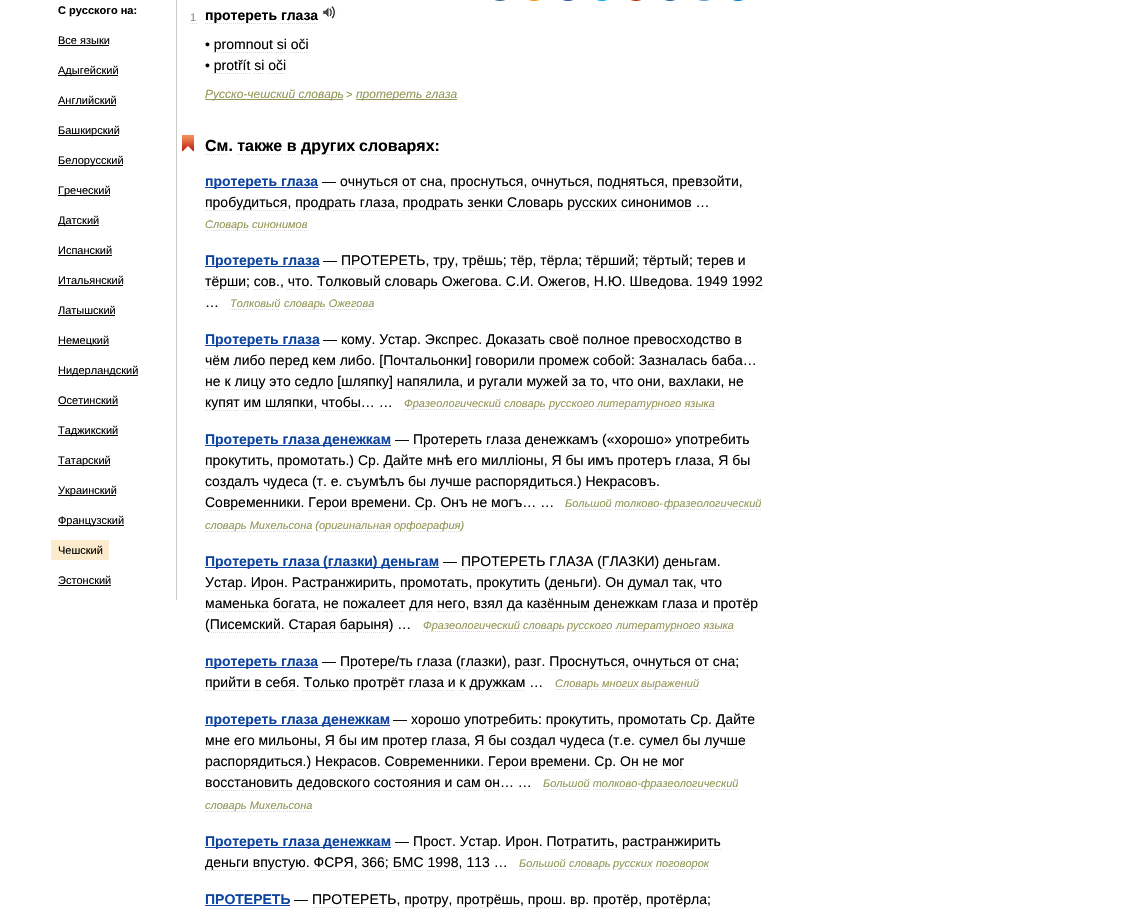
void draw(SkCanvas* canvas) {
    SkPaint paint;
    paint.setAntiAlias(true);
    auto face = [&](const char* family, int weight, float size, bool italic = false) {
        SkFontStyle style(weight, SkFontStyle::kNormal_Width,
            italic ? SkFontStyle::kItalic_Slant : SkFontStyle::kUpright_Slant);
        SkFont result(fontMgr->matchFamilyStyle(family, style), size);
        result.setSubpixel(true);
        return result;
    };
    auto write = [&](const char* s, float x, float y, const SkFont& font, SkColor color) {
        SkPaint ink(SkColor4f::FromColor(color));
        ink.setAntiAlias(true);
        canvas->drawString(s, x, y, font, ink);
    };
    auto block = [&](float x, float y, float w, float h, SkColor color) {
        SkPaint ink(SkColor4f::FromColor(color));
        ink.setAntiAlias(true);
        canvas->drawRect(SkRect::MakeXYWH(x, y, w, h), ink);
    };
    auto paste = [&](const char* path, float x, float y, float w, float h) {
        auto image = SkImages::DeferredFromEncodedData(SkData::MakeFromFileName(path));
        canvas->drawImageRect(image, SkRect::MakeXYWH(x, y, w, h), SkSamplingOptions());
    };
    canvas->clear(SK_ColorWHITE);
    block(176, 0, 1, 600, SkColorSetRGB(204, 204, 204));
    auto kFont1 = face("Liberation Sans", 700, 11);
    write("С русского на:", 58, 14, kFont1, SK_ColorBLACK);
    auto kFont2 = face("Liberation Sans", 400, 11);
    write("Все языки", 58, 44, kFont2, SK_ColorBLACK);
    block(58, 45, 51, 1, SK_ColorBLACK);
    block(58, 75, 60, 1, SK_ColorBLACK);
    write("Адыгейский", 58, 74, kFont2, SK_ColorBLACK);
    write("Английский", 58, 104, kFont2, SK_ColorBLACK);
    block(58, 105, 58, 1, SK_ColorBLACK);
    block(58, 135, 61, 1, SK_ColorBLACK);
    write("Башкирский", 58, 134, kFont2, SK_ColorBLACK);
    block(58, 165, 65, 1, SK_ColorBLACK);
    write("Белорусский", 58, 164, kFont2, SK_ColorBLACK);
    block(58, 195, 52, 1, SK_ColorBLACK);
    write("Греческий", 58, 194, kFont2, SK_ColorBLACK);
    block(58, 225, 41, 1, SK_ColorBLACK);
    write("Датский", 58, 224, kFont2, SK_ColorBLACK);
    write("Испанский", 58, 254, kFont2, SK_ColorBLACK);
    block(58, 255, 54, 1, SK_ColorBLACK);
    write("Итальянский", 58, 284, kFont2, SK_ColorBLACK);
    block(58, 285, 65, 1, SK_ColorBLACK);
    write("Латышский", 58, 314, kFont2, SK_ColorBLACK);
    block(58, 315, 57, 1, SK_ColorBLACK);
    block(58, 345, 51, 1, SK_ColorBLACK);
    write("Немецкий", 58, 344, kFont2, SK_ColorBLACK);
    block(58, 375, 80, 1, SK_ColorBLACK);
    write("Нидерландский", 58, 374, kFont2, SK_ColorBLACK);
    write("Осетинский", 58, 404, kFont2, SK_ColorBLACK);
    block(58, 405, 60, 1, SK_ColorBLACK);
    block(58, 435, 60, 1, SK_ColorBLACK);
    write("Таджикский", 58, 434, kFont2, SK_ColorBLACK);
    block(58, 465, 52, 1, SK_ColorBLACK);
    write("Татарский", 58, 464, kFont2, SK_ColorBLACK);
    block(58, 495, 58, 1, SK_ColorBLACK);
    write("Украинский", 58, 494, kFont2, SK_ColorBLACK);
    block(58, 525, 66, 1, SK_ColorBLACK);
    write("Французский", 58, 524, kFont2, SK_ColorBLACK);
    block(51, 540, 58, 20, SkColorSetRGB(252, 235, 204));
    write("Чешский", 58, 554, kFont2, SK_ColorBLACK);
    write("Эстонский", 58, 584, kFont2, SK_ColorBLACK);
    block(58, 585, 53, 1, SK_ColorBLACK);
    paste("pic1.png", 495, 0, 10, 1);
    paste("pic2.png", 529, 0, 10, 1);
    paste("pic3.png", 563, 0, 10, 1);
    paste("pic4.png", 597, 0, 10, 1);
    paste("pic5.png", 631, 0, 10, 1);
    paste("pic6.png", 665, 0, 10, 1);
    paste("pic7.png", 699, 0, 10, 1);
    paste("pic8.png", 733, 0, 10, 1);
    write("1", 190, 21, kFont2, SkColorSetRGB(137, 137, 137));
    paint.setStyle(SkPaint::kStroke_Style);
    paint.setStrokeWidth(1);
    paint.setColor(SkColorSetRGB(217, 217, 217));
    canvas->drawPath(SkPathBuilder().moveTo(190, 23.5f).lineTo(191, 23.5f).moveTo(192, 23.5f).lineTo(193, 23.5f).moveTo(194, 23.5f).lineTo(195, 23.5f).moveTo(196, 23.5f).lineTo(197, 23.5f).detach(), paint);
    auto kFont3 = face("Liberation Sans", 700, 14);
    write("протереть глаза", 205, 20, kFont3, SK_ColorBLACK);
    paint.setPathEffect(SkDashPathEffect::Make({{1, 1}}, 0));
    canvas->drawPath(SkPathBuilder().moveTo(205, 23.5f).lineTo(277, 23.5f).detach(), paint);
    paint.setPathEffect(nullptr);
    paint.setPathEffect(SkDashPathEffect::Make({{1, 1}}, 0));
    canvas->drawPath(SkPathBuilder().moveTo(280, 23.5f).lineTo(318, 23.5f).detach(), paint);
    paint.setPathEffect(nullptr);
    paste("pic9.png", 323, 6, 14, 14);
    auto kFont4 = face("Liberation Sans", 400, 14);
    write("• promnout si oči", 205, 49, kFont4, SK_ColorBLACK);
    paint.setPathEffect(SkDashPathEffect::Make({{1, 1}}, 0));
    canvas->drawPath(SkPathBuilder().moveTo(213, 52.5f).lineTo(272, 52.5f).detach(), paint);
    paint.setPathEffect(nullptr);
    paint.setPathEffect(SkDashPathEffect::Make({{1, 1}}, 0));
    canvas->drawPath(SkPathBuilder().moveTo(276, 52.5f).lineTo(286, 52.5f).moveTo(290, 52.5f).lineTo(308, 52.5f).detach(), paint);
    paint.setPathEffect(nullptr);
    write("• protřít si oči", 205, 70, kFont4, SK_ColorBLACK);
    paint.setPathEffect(SkDashPathEffect::Make({{1, 1}}, 0));
    canvas->drawPath(SkPathBuilder().moveTo(213, 73.5f).lineTo(250, 73.5f).moveTo(254, 73.5f).lineTo(264, 73.5f).detach(), paint);
    paint.setPathEffect(nullptr);
    paint.setPathEffect(SkDashPathEffect::Make({{1, 1}}, 0));
    canvas->drawPath(SkPathBuilder().moveTo(268, 73.5f).lineTo(286, 73.5f).detach(), paint);
    paint.setPathEffect(nullptr);
    block(205, 99, 138, 1, SkColorSetRGB(147, 151, 86));
    auto kFont5 = face("Liberation Sans", 400, 12, true);
    write("Русско-чешский словарь", 205, 98, kFont5, SkColorSetRGB(147, 151, 86));
    auto kFont6 = face("Liberation Sans", 400, 11, true);
    write(">", 346, 98, kFont6, SkColorSetRGB(147, 151, 86));
    block(356, 99, 101, 1, SkColorSetRGB(147, 151, 86));
    write("протереть глаза", 356, 98, kFont5, SkColorSetRGB(147, 151, 86));
    paste("pic10.png", 182, 135, 12, 16);
    auto kFont7 = face("Liberation Sans", 700, 16);
    write("См. также в", 205, 151, kFont7, SK_ColorBLACK);
    paint.setPathEffect(SkDashPathEffect::Make({{1, 1}}, 0));
    canvas->drawPath(SkPathBuilder().moveTo(205, 154.5f).lineTo(228, 154.5f).detach(), paint);
    paint.setPathEffect(nullptr);
    paint.setPathEffect(SkDashPathEffect::Make({{1, 1}}, 0));
    canvas->drawPath(SkPathBuilder().moveTo(301, 154.5f).lineTo(355, 154.5f).detach(), paint);
    paint.setPathEffect(nullptr);
    write("других", 301, 151, kFont7, SK_ColorBLACK);
    paint.setPathEffect(SkDashPathEffect::Make({{1, 1}}, 0));
    canvas->drawPath(SkPathBuilder().moveTo(359, 154.5f).lineTo(440, 154.5f).detach(), paint);
    paint.setPathEffect(nullptr);
    write("словарях:", 359, 151, kFont7, SK_ColorBLACK);
    paint.setPathEffect(SkDashPathEffect::Make({{1, 1}}, 0));
    canvas->drawPath(SkPathBuilder().moveTo(237, 154.5f).lineTo(282, 154.5f).moveTo(286, 154.5f).lineTo(296, 154.5f).detach(), paint);
    paint.setPathEffect(nullptr);
    block(205, 187, 113, 1, SkColorSetRGB(13, 68, 160));
    write("протереть глаза", 205, 186, kFont3, SkColorSetRGB(13, 68, 160));
    write("— очнуться от сна, проснуться, очнуться, подняться, превзойти,", 322, 186, kFont4, SK_ColorBLACK);
    paint.setPathEffect(SkDashPathEffect::Make({{1, 1}}, 0));
    canvas->drawPath(SkPathBuilder().moveTo(339, 189.5f).lineTo(398, 189.5f).detach(), paint);
    paint.setPathEffect(nullptr);
    paint.setPathEffect(SkDashPathEffect::Make({{1, 1}}, 0));
    canvas->drawPath(SkPathBuilder().moveTo(401, 189.5f).lineTo(416, 189.5f).moveTo(420, 189.5f).lineTo(442, 189.5f).detach(), paint);
    paint.setPathEffect(nullptr);
    paint.setPathEffect(SkDashPathEffect::Make({{1, 1}}, 0));
    canvas->drawPath(SkPathBuilder().moveTo(450, 189.5f).lineTo(523, 189.5f).detach(), paint);
    paint.setPathEffect(nullptr);
    paint.setPathEffect(SkDashPathEffect::Make({{1, 1}}, 0));
    canvas->drawPath(SkPathBuilder().moveTo(531, 189.5f).lineTo(589, 189.5f).detach(), paint);
    paint.setPathEffect(nullptr);
    paint.setPathEffect(SkDashPathEffect::Make({{1, 1}}, 0));
    canvas->drawPath(SkPathBuilder().moveTo(597, 189.5f).lineTo(664, 189.5f).detach(), paint);
    paint.setPathEffect(nullptr);
    paint.setPathEffect(SkDashPathEffect::Make({{1, 1}}, 0));
    canvas->drawPath(SkPathBuilder().moveTo(672, 189.5f).lineTo(738, 189.5f).detach(), paint);
    paint.setPathEffect(nullptr);
    write("пробудиться, продрать глаза, продрать зенки Словарь русских синонимов …", 205, 207, kFont4, SK_ColorBLACK);
    paint.setPathEffect(SkDashPathEffect::Make({{1, 1}}, 0));
    canvas->drawPath(SkPathBuilder().moveTo(205, 210.5f).lineTo(287, 210.5f).detach(), paint);
    paint.setPathEffect(nullptr);
    paint.setPathEffect(SkDashPathEffect::Make({{1, 1}}, 0));
    canvas->drawPath(SkPathBuilder().moveTo(295, 210.5f).lineTo(355, 210.5f).detach(), paint);
    paint.setPathEffect(nullptr);
    paint.setPathEffect(SkDashPathEffect::Make({{1, 1}}, 0));
    canvas->drawPath(SkPathBuilder().moveTo(359, 210.5f).lineTo(395, 210.5f).detach(), paint);
    paint.setPathEffect(nullptr);
    paint.setPathEffect(SkDashPathEffect::Make({{1, 1}}, 0));
    canvas->drawPath(SkPathBuilder().moveTo(402, 210.5f).lineTo(463, 210.5f).detach(), paint);
    paint.setPathEffect(nullptr);
    paint.setPathEffect(SkDashPathEffect::Make({{1, 1}}, 0));
    canvas->drawPath(SkPathBuilder().moveTo(467, 210.5f).lineTo(503, 210.5f).detach(), paint);
    paint.setPathEffect(nullptr);
    paint.setPathEffect(SkDashPathEffect::Make({{1, 1}}, 0));
    canvas->drawPath(SkPathBuilder().moveTo(507, 210.5f).lineTo(563, 210.5f).detach(), paint);
    paint.setPathEffect(nullptr);
    paint.setPathEffect(SkDashPathEffect::Make({{1, 1}}, 0));
    canvas->drawPath(SkPathBuilder().moveTo(567, 210.5f).lineTo(617, 210.5f).detach(), paint);
    paint.setPathEffect(nullptr);
    paint.setPathEffect(SkDashPathEffect::Make({{1, 1}}, 0));
    canvas->drawPath(SkPathBuilder().moveTo(620, 210.5f).lineTo(691, 210.5f).detach(), paint);
    paint.setPathEffect(nullptr);
    paint.setPathEffect(SkDashPathEffect::Make({{1, 1}}, 0));
    canvas->drawPath(SkPathBuilder().moveTo(205, 230.5f).lineTo(249, 230.5f).detach(), paint);
    paint.setPathEffect(nullptr);
    write("Словарь синонимов", 205, 228, kFont6, SkColorSetRGB(147, 151, 86));
    paint.setPathEffect(SkDashPathEffect::Make({{1, 1}}, 0));
    canvas->drawPath(SkPathBuilder().moveTo(252, 230.5f).lineTo(307, 230.5f).detach(), paint);
    paint.setPathEffect(nullptr);
    block(205, 266, 114, 1, SkColorSetRGB(13, 68, 160));
    write("Протереть глаза", 205, 265, kFont3, SkColorSetRGB(13, 68, 160));
    write("— ПРОТЕРЕТЬ, тру, трёшь; тёр, тёрла; тёрший; тёртый; терев и", 323, 265, kFont4, SK_ColorBLACK);
    paint.setPathEffect(SkDashPathEffect::Make({{1, 1}}, 0));
    canvas->drawPath(SkPathBuilder().moveTo(341, 268.5f).lineTo(426, 268.5f).detach(), paint);
    paint.setPathEffect(nullptr);
    paint.setPathEffect(SkDashPathEffect::Make({{1, 1}}, 0));
    canvas->drawPath(SkPathBuilder().moveTo(433, 268.5f).lineTo(455, 268.5f).detach(), paint);
    paint.setPathEffect(nullptr);
    paint.setPathEffect(SkDashPathEffect::Make({{1, 1}}, 0));
    canvas->drawPath(SkPathBuilder().moveTo(462, 268.5f).lineTo(503, 268.5f).detach(), paint);
    paint.setPathEffect(nullptr);
    paint.setPathEffect(SkDashPathEffect::Make({{1, 1}}, 0));
    canvas->drawPath(SkPathBuilder().moveTo(511, 268.5f).lineTo(533, 268.5f).detach(), paint);
    paint.setPathEffect(nullptr);
    paint.setPathEffect(SkDashPathEffect::Make({{1, 1}}, 0));
    canvas->drawPath(SkPathBuilder().moveTo(540, 268.5f).lineTo(578, 268.5f).detach(), paint);
    paint.setPathEffect(nullptr);
    paint.setPathEffect(SkDashPathEffect::Make({{1, 1}}, 0));
    canvas->drawPath(SkPathBuilder().moveTo(586, 268.5f).lineTo(635, 268.5f).detach(), paint);
    paint.setPathEffect(nullptr);
    paint.setPathEffect(SkDashPathEffect::Make({{1, 1}}, 0));
    canvas->drawPath(SkPathBuilder().moveTo(643, 268.5f).lineTo(689, 268.5f).detach(), paint);
    paint.setPathEffect(nullptr);
    paint.setPathEffect(SkDashPathEffect::Make({{1, 1}}, 0));
    canvas->drawPath(SkPathBuilder().moveTo(697, 268.5f).lineTo(734, 268.5f).moveTo(738, 268.5f).lineTo(746, 268.5f).detach(), paint);
    paint.setPathEffect(nullptr);
    write("тёрши; сов., что. Толковый словарь Ожегова. С.И. Ожегов, Н.Ю. Шведова. 1949 1992", 205, 286, kFont4, SK_ColorBLACK);
    paint.setPathEffect(SkDashPathEffect::Make({{1, 1}}, 0));
    canvas->drawPath(SkPathBuilder().moveTo(205, 289.5f).lineTo(246, 289.5f).detach(), paint);
    paint.setPathEffect(nullptr);
    paint.setPathEffect(SkDashPathEffect::Make({{1, 1}}, 0));
    canvas->drawPath(SkPathBuilder().moveTo(253, 289.5f).lineTo(276, 289.5f).moveTo(287, 289.5f).lineTo(309, 289.5f).detach(), paint);
    paint.setPathEffect(nullptr);
    paint.setPathEffect(SkDashPathEffect::Make({{1, 1}}, 0));
    canvas->drawPath(SkPathBuilder().moveTo(317, 289.5f).lineTo(380, 289.5f).detach(), paint);
    paint.setPathEffect(nullptr);
    paint.setPathEffect(SkDashPathEffect::Make({{1, 1}}, 0));
    canvas->drawPath(SkPathBuilder().moveTo(384, 289.5f).lineTo(437, 289.5f).detach(), paint);
    paint.setPathEffect(nullptr);
    paint.setPathEffect(SkDashPathEffect::Make({{1, 1}}, 0));
    canvas->drawPath(SkPathBuilder().moveTo(441, 289.5f).lineTo(497, 289.5f).detach(), paint);
    paint.setPathEffect(nullptr);
    paint.setPathEffect(SkDashPathEffect::Make({{1, 1}}, 0));
    canvas->drawPath(SkPathBuilder().moveTo(505, 289.5f).lineTo(515, 289.5f).moveTo(519, 289.5f).lineTo(529, 289.5f).detach(), paint);
    paint.setPathEffect(nullptr);
    paint.setPathEffect(SkDashPathEffect::Make({{1, 1}}, 0));
    canvas->drawPath(SkPathBuilder().moveTo(537, 289.5f).lineTo(586, 289.5f).detach(), paint);
    paint.setPathEffect(nullptr);
    paint.setPathEffect(SkDashPathEffect::Make({{1, 1}}, 0));
    canvas->drawPath(SkPathBuilder().moveTo(593, 289.5f).lineTo(603, 289.5f).moveTo(607, 289.5f).lineTo(621, 289.5f).detach(), paint);
    paint.setPathEffect(nullptr);
    paint.setPathEffect(SkDashPathEffect::Make({{1, 1}}, 0));
    canvas->drawPath(SkPathBuilder().moveTo(629, 289.5f).lineTo(688, 289.5f).detach(), paint);
    paint.setPathEffect(nullptr);
    paint.setPathEffect(SkDashPathEffect::Make({{1, 1}}, 0));
    canvas->drawPath(SkPathBuilder().moveTo(696, 289.5f).lineTo(727, 289.5f).detach(), paint);
    paint.setPathEffect(nullptr);
    paint.setPathEffect(SkDashPathEffect::Make({{1, 1}}, 0));
    canvas->drawPath(SkPathBuilder().moveTo(731, 289.5f).lineTo(762, 289.5f).detach(), paint);
    paint.setPathEffect(nullptr);
    write("…", 205, 307, kFont4, SK_ColorBLACK);
    write("Толковый", 230, 307, kFont6, SkColorSetRGB(147, 151, 86));
    paint.setPathEffect(SkDashPathEffect::Make({{1, 1}}, 0));
    canvas->drawPath(SkPathBuilder().moveTo(230, 309.5f).lineTo(280, 309.5f).detach(), paint);
    paint.setPathEffect(nullptr);
    paint.setPathEffect(SkDashPathEffect::Make({{1, 1}}, 0));
    canvas->drawPath(SkPathBuilder().moveTo(284, 309.5f).lineTo(325, 309.5f).detach(), paint);
    paint.setPathEffect(nullptr);
    write("словарь Ожегова", 284, 307, kFont6, SkColorSetRGB(147, 151, 86));
    paint.setPathEffect(SkDashPathEffect::Make({{1, 1}}, 0));
    canvas->drawPath(SkPathBuilder().moveTo(328, 309.5f).lineTo(374, 309.5f).detach(), paint);
    paint.setPathEffect(nullptr);
    block(205, 345, 114, 1, SkColorSetRGB(13, 68, 160));
    write("Протереть глаза", 205, 344, kFont3, SkColorSetRGB(13, 68, 160));
    write("— кому. Устар. Экспрес. Доказать своё полное превосходство в", 323, 344, kFont4, SK_ColorBLACK);
    paint.setPathEffect(SkDashPathEffect::Make({{1, 1}}, 0));
    canvas->drawPath(SkPathBuilder().moveTo(341, 347.5f).lineTo(372, 347.5f).detach(), paint);
    paint.setPathEffect(nullptr);
    paint.setPathEffect(SkDashPathEffect::Make({{1, 1}}, 0));
    canvas->drawPath(SkPathBuilder().moveTo(379, 347.5f).lineTo(417, 347.5f).detach(), paint);
    paint.setPathEffect(nullptr);
    paint.setPathEffect(SkDashPathEffect::Make({{1, 1}}, 0));
    canvas->drawPath(SkPathBuilder().moveTo(425, 347.5f).lineTo(478, 347.5f).detach(), paint);
    paint.setPathEffect(nullptr);
    paint.setPathEffect(SkDashPathEffect::Make({{1, 1}}, 0));
    canvas->drawPath(SkPathBuilder().moveTo(486, 347.5f).lineTo(545, 347.5f).detach(), paint);
    paint.setPathEffect(nullptr);
    paint.setPathEffect(SkDashPathEffect::Make({{1, 1}}, 0));
    canvas->drawPath(SkPathBuilder().moveTo(549, 347.5f).lineTo(579, 347.5f).detach(), paint);
    paint.setPathEffect(nullptr);
    paint.setPathEffect(SkDashPathEffect::Make({{1, 1}}, 0));
    canvas->drawPath(SkPathBuilder().moveTo(583, 347.5f).lineTo(630, 347.5f).detach(), paint);
    paint.setPathEffect(nullptr);
    paint.setPathEffect(SkDashPathEffect::Make({{1, 1}}, 0));
    canvas->drawPath(SkPathBuilder().moveTo(634, 347.5f).lineTo(731, 347.5f).detach(), paint);
    paint.setPathEffect(nullptr);
    canvas->drawPath(SkPathBuilder().moveTo(735, 347.5f).lineTo(736, 347.5f).moveTo(737, 347.5f).lineTo(738, 347.5f).moveTo(739, 347.5f).lineTo(740, 347.5f).moveTo(741, 347.5f).lineTo(742, 347.5f).detach(), paint);
    write("чём либо перед кем либо. [Почтальонки] говорили промеж собой: Зазналась баба…", 205, 365, kFont4, SK_ColorBLACK);
    paint.setPathEffect(SkDashPathEffect::Make({{1, 1}}, 0));
    canvas->drawPath(SkPathBuilder().moveTo(205, 368.5f).lineTo(229, 368.5f).detach(), paint);
    paint.setPathEffect(nullptr);
    paint.setPathEffect(SkDashPathEffect::Make({{1, 1}}, 0));
    canvas->drawPath(SkPathBuilder().moveTo(233, 368.5f).lineTo(265, 368.5f).detach(), paint);
    paint.setPathEffect(nullptr);
    paint.setPathEffect(SkDashPathEffect::Make({{1, 1}}, 0));
    canvas->drawPath(SkPathBuilder().moveTo(269, 368.5f).lineTo(308, 368.5f).detach(), paint);
    paint.setPathEffect(nullptr);
    paint.setPathEffect(SkDashPathEffect::Make({{1, 1}}, 0));
    canvas->drawPath(SkPathBuilder().moveTo(312, 368.5f).lineTo(335, 368.5f).moveTo(339, 368.5f).lineTo(371, 368.5f).detach(), paint);
    paint.setPathEffect(nullptr);
    paint.setPathEffect(SkDashPathEffect::Make({{1, 1}}, 0));
    canvas->drawPath(SkPathBuilder().moveTo(383, 368.5f).lineTo(467, 368.5f).detach(), paint);
    paint.setPathEffect(nullptr);
    paint.setPathEffect(SkDashPathEffect::Make({{1, 1}}, 0));
    canvas->drawPath(SkPathBuilder().moveTo(475, 368.5f).lineTo(534, 368.5f).detach(), paint);
    paint.setPathEffect(nullptr);
    paint.setPathEffect(SkDashPathEffect::Make({{1, 1}}, 0));
    canvas->drawPath(SkPathBuilder().moveTo(538, 368.5f).lineTo(588, 368.5f).detach(), paint);
    paint.setPathEffect(nullptr);
    paint.setPathEffect(SkDashPathEffect::Make({{1, 1}}, 0));
    canvas->drawPath(SkPathBuilder().moveTo(592, 368.5f).lineTo(635, 368.5f).detach(), paint);
    paint.setPathEffect(nullptr);
    paint.setPathEffect(SkDashPathEffect::Make({{1, 1}}, 0));
    canvas->drawPath(SkPathBuilder().moveTo(638, 368.5f).lineTo(707, 368.5f).detach(), paint);
    paint.setPathEffect(nullptr);
    paint.setPathEffect(SkDashPathEffect::Make({{1, 1}}, 0));
    canvas->drawPath(SkPathBuilder().moveTo(711, 368.5f).lineTo(742, 368.5f).detach(), paint);
    paint.setPathEffect(nullptr);
    write("не к лицу это седло [шляпку] напялила, и ругали мужей за то, что они, вахлаки, не", 205, 386, kFont4, SK_ColorBLACK);
    paint.setPathEffect(SkDashPathEffect::Make({{1, 1}}, 0));
    canvas->drawPath(SkPathBuilder().moveTo(205, 389.5f).lineTo(220, 389.5f).detach(), paint);
    paint.setPathEffect(nullptr);
    canvas->drawPath(SkPathBuilder().moveTo(224, 389.5f).lineTo(225, 389.5f).moveTo(226, 389.5f).lineTo(227, 389.5f).moveTo(228, 389.5f).lineTo(229, 389.5f).detach(), paint);
    paint.setPathEffect(SkDashPathEffect::Make({{1, 1}}, 0));
    canvas->drawPath(SkPathBuilder().moveTo(234, 389.5f).lineTo(265, 389.5f).moveTo(269, 389.5f).lineTo(290, 389.5f).detach(), paint);
    paint.setPathEffect(nullptr);
    paint.setPathEffect(SkDashPathEffect::Make({{1, 1}}, 0));
    canvas->drawPath(SkPathBuilder().moveTo(294, 389.5f).lineTo(333, 389.5f).detach(), paint);
    paint.setPathEffect(nullptr);
    paint.setPathEffect(SkDashPathEffect::Make({{1, 1}}, 0));
    canvas->drawPath(SkPathBuilder().moveTo(341, 389.5f).lineTo(388, 389.5f).detach(), paint);
    paint.setPathEffect(nullptr);
    paint.setPathEffect(SkDashPathEffect::Make({{1, 1}}, 0));
    canvas->drawPath(SkPathBuilder().moveTo(396, 389.5f).lineTo(459, 389.5f).detach(), paint);
    paint.setPathEffect(nullptr);
    canvas->drawPath(SkPathBuilder().moveTo(467, 389.5f).lineTo(468, 389.5f).moveTo(469, 389.5f).lineTo(470, 389.5f).moveTo(471, 389.5f).lineTo(472, 389.5f).moveTo(473, 389.5f).lineTo(474, 389.5f).detach(), paint);
    paint.setPathEffect(SkDashPathEffect::Make({{1, 1}}, 0));
    canvas->drawPath(SkPathBuilder().moveTo(478, 389.5f).lineTo(522, 389.5f).detach(), paint);
    paint.setPathEffect(nullptr);
    paint.setPathEffect(SkDashPathEffect::Make({{1, 1}}, 0));
    canvas->drawPath(SkPathBuilder().moveTo(526, 389.5f).lineTo(568, 389.5f).moveTo(571, 389.5f).lineTo(586, 389.5f).detach(), paint);
    paint.setPathEffect(nullptr);
    paint.setPathEffect(SkDashPathEffect::Make({{1, 1}}, 0));
    canvas->drawPath(SkPathBuilder().moveTo(590, 389.5f).lineTo(604, 389.5f).moveTo(612, 389.5f).lineTo(633, 389.5f).detach(), paint);
    paint.setPathEffect(nullptr);
    paint.setPathEffect(SkDashPathEffect::Make({{1, 1}}, 0));
    canvas->drawPath(SkPathBuilder().moveTo(637, 389.5f).lineTo(660, 389.5f).detach(), paint);
    paint.setPathEffect(nullptr);
    paint.setPathEffect(SkDashPathEffect::Make({{1, 1}}, 0));
    canvas->drawPath(SkPathBuilder().moveTo(668, 389.5f).lineTo(720, 389.5f).detach(), paint);
    paint.setPathEffect(nullptr);
    paint.setPathEffect(SkDashPathEffect::Make({{1, 1}}, 0));
    canvas->drawPath(SkPathBuilder().moveTo(728, 389.5f).lineTo(743, 389.5f).detach(), paint);
    paint.setPathEffect(nullptr);
    write("купят им шляпки, чтобы… …", 205, 407, kFont4, SK_ColorBLACK);
    paint.setPathEffect(SkDashPathEffect::Make({{1, 1}}, 0));
    canvas->drawPath(SkPathBuilder().moveTo(205, 410.5f).lineTo(239, 410.5f).detach(), paint);
    paint.setPathEffect(nullptr);
    paint.setPathEffect(SkDashPathEffect::Make({{1, 1}}, 0));
    canvas->drawPath(SkPathBuilder().moveTo(404, 409.5f).lineTo(501, 409.5f).detach(), paint);
    paint.setPathEffect(nullptr);
    write("Фразеологический", 404, 407, kFont6, SkColorSetRGB(147, 151, 86));
    paint.setPathEffect(SkDashPathEffect::Make({{1, 1}}, 0));
    canvas->drawPath(SkPathBuilder().moveTo(504, 409.5f).lineTo(545, 409.5f).detach(), paint);
    paint.setPathEffect(nullptr);
    write("словарь", 504, 407, kFont6, SkColorSetRGB(147, 151, 86));
    paint.setPathEffect(SkDashPathEffect::Make({{1, 1}}, 0));
    canvas->drawPath(SkPathBuilder().moveTo(549, 409.5f).lineTo(594, 409.5f).detach(), paint);
    paint.setPathEffect(nullptr);
    write("русского", 549, 407, kFont6, SkColorSetRGB(147, 151, 86));
    paint.setPathEffect(SkDashPathEffect::Make({{1, 1}}, 0));
    canvas->drawPath(SkPathBuilder().moveTo(597, 409.5f).lineTo(681, 409.5f).detach(), paint);
    paint.setPathEffect(nullptr);
    write("литературного языка", 597, 407, kFont6, SkColorSetRGB(147, 151, 86));
    paint.setPathEffect(SkDashPathEffect::Make({{1, 1}}, 0));
    canvas->drawPath(SkPathBuilder().moveTo(684, 409.5f).lineTo(715, 409.5f).detach(), paint);
    paint.setPathEffect(nullptr);
    paint.setPathEffect(SkDashPathEffect::Make({{1, 1}}, 0));
    canvas->drawPath(SkPathBuilder().moveTo(243, 410.5f).lineTo(261, 410.5f).detach(), paint);
    paint.setPathEffect(nullptr);
    paint.setPathEffect(SkDashPathEffect::Make({{1, 1}}, 0));
    canvas->drawPath(SkPathBuilder().moveTo(264, 410.5f).lineTo(313, 410.5f).detach(), paint);
    paint.setPathEffect(nullptr);
    paint.setPathEffect(SkDashPathEffect::Make({{1, 1}}, 0));
    canvas->drawPath(SkPathBuilder().moveTo(321, 410.5f).lineTo(360, 410.5f).detach(), paint);
    paint.setPathEffect(nullptr);
    block(205, 445, 114, 1, SkColorSetRGB(13, 68, 160));
    write("Протереть глаза", 205, 444, kFont3, SkColorSetRGB(13, 68, 160));
    block(319, 445, 72, 1, SkColorSetRGB(13, 68, 160));
    write("денежкам", 323, 444, kFont3, SkColorSetRGB(13, 68, 160));
    write("— Протереть глаза денежкамъ («хорошо» употребить", 395, 444, kFont4, SK_ColorBLACK);
    paint.setPathEffect(SkDashPathEffect::Make({{1, 1}}, 0));
    canvas->drawPath(SkPathBuilder().moveTo(413, 447.5f).lineTo(482, 447.5f).detach(), paint);
    paint.setPathEffect(nullptr);
    paint.setPathEffect(SkDashPathEffect::Make({{1, 1}}, 0));
    canvas->drawPath(SkPathBuilder().moveTo(486, 447.5f).lineTo(521, 447.5f).detach(), paint);
    paint.setPathEffect(nullptr);
    paint.setPathEffect(SkDashPathEffect::Make({{1, 1}}, 0));
    canvas->drawPath(SkPathBuilder().moveTo(525, 447.5f).lineTo(598, 447.5f).detach(), paint);
    paint.setPathEffect(nullptr);
    paint.setPathEffect(SkDashPathEffect::Make({{1, 1}}, 0));
    canvas->drawPath(SkPathBuilder().moveTo(615, 447.5f).lineTo(664, 447.5f).detach(), paint);
    paint.setPathEffect(nullptr);
    paint.setPathEffect(SkDashPathEffect::Make({{1, 1}}, 0));
    canvas->drawPath(SkPathBuilder().moveTo(676, 447.5f).lineTo(750, 447.5f).detach(), paint);
    paint.setPathEffect(nullptr);
    write("прокутить, промотать.) Ср. Дайте мнѣ его милліоны, Я бы имъ протеръ глаза, Я бы", 205, 465, kFont4, SK_ColorBLACK);
    paint.setPathEffect(SkDashPathEffect::Make({{1, 1}}, 0));
    canvas->drawPath(SkPathBuilder().moveTo(205, 468.5f).lineTo(269, 468.5f).detach(), paint);
    paint.setPathEffect(nullptr);
    paint.setPathEffect(SkDashPathEffect::Make({{1, 1}}, 0));
    canvas->drawPath(SkPathBuilder().moveTo(277, 468.5f).lineTo(345, 468.5f).detach(), paint);
    paint.setPathEffect(nullptr);
    paint.setPathEffect(SkDashPathEffect::Make({{1, 1}}, 0));
    canvas->drawPath(SkPathBuilder().moveTo(357, 468.5f).lineTo(375, 468.5f).detach(), paint);
    paint.setPathEffect(nullptr);
    paint.setPathEffect(SkDashPathEffect::Make({{1, 1}}, 0));
    canvas->drawPath(SkPathBuilder().moveTo(383, 468.5f).lineTo(422, 468.5f).detach(), paint);
    paint.setPathEffect(nullptr);
    paint.setPathEffect(SkDashPathEffect::Make({{1, 1}}, 0));
    canvas->drawPath(SkPathBuilder().moveTo(426, 468.5f).lineTo(452, 468.5f).moveTo(456, 468.5f).lineTo(477, 468.5f).detach(), paint);
    paint.setPathEffect(nullptr);
    paint.setPathEffect(SkDashPathEffect::Make({{1, 1}}, 0));
    canvas->drawPath(SkPathBuilder().moveTo(481, 468.5f).lineTo(515, 468.5f).moveTo(518, 468.5f).lineTo(543, 468.5f).detach(), paint);
    paint.setPathEffect(nullptr);
    paint.setPathEffect(SkDashPathEffect::Make({{1, 1}}, 0));
    canvas->drawPath(SkPathBuilder().moveTo(551, 468.5f).lineTo(561, 468.5f).moveTo(565, 468.5f).lineTo(583, 468.5f).moveTo(587, 468.5f).lineTo(613, 468.5f).detach(), paint);
    paint.setPathEffect(nullptr);
    paint.setPathEffect(SkDashPathEffect::Make({{1, 1}}, 0));
    canvas->drawPath(SkPathBuilder().moveTo(617, 468.5f).lineTo(671, 468.5f).detach(), paint);
    paint.setPathEffect(nullptr);
    paint.setPathEffect(SkDashPathEffect::Make({{1, 1}}, 0));
    canvas->drawPath(SkPathBuilder().moveTo(675, 468.5f).lineTo(710, 468.5f).moveTo(718, 468.5f).lineTo(728, 468.5f).detach(), paint);
    paint.setPathEffect(nullptr);
    paint.setPathEffect(SkDashPathEffect::Make({{1, 1}}, 0));
    canvas->drawPath(SkPathBuilder().moveTo(732, 468.5f).lineTo(750, 468.5f).detach(), paint);
    paint.setPathEffect(nullptr);
    write("создалъ чудеса (т. е. съумѣлъ бы лучше распорядиться.) Некрасовъ.", 205, 486, kFont4, SK_ColorBLACK);
    paint.setPathEffect(SkDashPathEffect::Make({{1, 1}}, 0));
    canvas->drawPath(SkPathBuilder().moveTo(205, 489.5f).lineTo(259, 489.5f).detach(), paint);
    paint.setPathEffect(nullptr);
    paint.setPathEffect(SkDashPathEffect::Make({{1, 1}}, 0));
    canvas->drawPath(SkPathBuilder().moveTo(262, 489.5f).lineTo(308, 489.5f).detach(), paint);
    paint.setPathEffect(nullptr);
    canvas->drawPath(SkPathBuilder().moveTo(316, 489.5f).lineTo(317, 489.5f).moveTo(318, 489.5f).lineTo(319, 489.5f).moveTo(320, 489.5f).lineTo(321, 489.5f).moveTo(322, 489.5f).lineTo(323, 489.5f).detach(), paint);
    paint.setPathEffect(SkDashPathEffect::Make({{1, 1}}, 0));
    canvas->drawPath(SkPathBuilder().moveTo(330, 489.5f).lineTo(338, 489.5f).detach(), paint);
    paint.setPathEffect(nullptr);
    paint.setPathEffect(SkDashPathEffect::Make({{1, 1}}, 0));
    canvas->drawPath(SkPathBuilder().moveTo(346, 489.5f).lineTo(404, 489.5f).detach(), paint);
    paint.setPathEffect(nullptr);
    paint.setPathEffect(SkDashPathEffect::Make({{1, 1}}, 0));
    canvas->drawPath(SkPathBuilder().moveTo(408, 489.5f).lineTo(426, 489.5f).moveTo(430, 489.5f).lineTo(471, 489.5f).detach(), paint);
    paint.setPathEffect(nullptr);
    paint.setPathEffect(SkDashPathEffect::Make({{1, 1}}, 0));
    canvas->drawPath(SkPathBuilder().moveTo(475, 489.5f).lineTo(573, 489.5f).detach(), paint);
    paint.setPathEffect(nullptr);
    paint.setPathEffect(SkDashPathEffect::Make({{1, 1}}, 0));
    canvas->drawPath(SkPathBuilder().moveTo(585, 489.5f).lineTo(656, 489.5f).detach(), paint);
    paint.setPathEffect(nullptr);
    write("Современники. Герои времени. Ср. Онъ не могъ… …", 205, 507, kFont4, SK_ColorBLACK);
    paint.setPathEffect(SkDashPathEffect::Make({{1, 1}}, 0));
    canvas->drawPath(SkPathBuilder().moveTo(205, 510.5f).lineTo(300, 510.5f).detach(), paint);
    paint.setPathEffect(nullptr);
    write("Большой толково-", 565, 507, kFont6, SkColorSetRGB(147, 151, 86));
    paint.setPathEffect(SkDashPathEffect::Make({{1, 1}}, 0));
    canvas->drawPath(SkPathBuilder().moveTo(565, 509.5f).lineTo(612, 509.5f).detach(), paint);
    paint.setPathEffect(nullptr);
    paint.setPathEffect(SkDashPathEffect::Make({{1, 1}}, 0));
    canvas->drawPath(SkPathBuilder().moveTo(615, 509.5f).lineTo(660, 509.5f).detach(), paint);
    paint.setPathEffect(nullptr);
    paint.setPathEffect(SkDashPathEffect::Make({{1, 1}}, 0));
    canvas->drawPath(SkPathBuilder().moveTo(664, 509.5f).lineTo(761, 509.5f).detach(), paint);
    paint.setPathEffect(nullptr);
    write("фразеологический", 664, 507, kFont6, SkColorSetRGB(147, 151, 86));
    paint.setPathEffect(SkDashPathEffect::Make({{1, 1}}, 0));
    canvas->drawPath(SkPathBuilder().moveTo(308, 510.5f).lineTo(347, 510.5f).detach(), paint);
    paint.setPathEffect(nullptr);
    paint.setPathEffect(SkDashPathEffect::Make({{1, 1}}, 0));
    canvas->drawPath(SkPathBuilder().moveTo(350, 510.5f).lineTo(406, 510.5f).detach(), paint);
    paint.setPathEffect(nullptr);
    paint.setPathEffect(SkDashPathEffect::Make({{1, 1}}, 0));
    canvas->drawPath(SkPathBuilder().moveTo(414, 510.5f).lineTo(432, 510.5f).moveTo(440, 510.5f).lineTo(467, 510.5f).detach(), paint);
    paint.setPathEffect(nullptr);
    paint.setPathEffect(SkDashPathEffect::Make({{1, 1}}, 0));
    canvas->drawPath(SkPathBuilder().moveTo(471, 510.5f).lineTo(487, 510.5f).moveTo(491, 510.5f).lineTo(522, 510.5f).detach(), paint);
    paint.setPathEffect(nullptr);
    paint.setPathEffect(SkDashPathEffect::Make({{1, 1}}, 0));
    canvas->drawPath(SkPathBuilder().moveTo(205, 531.5f).lineTo(246, 531.5f).detach(), paint);
    paint.setPathEffect(nullptr);
    write("словарь Михельсона (", 205, 529, kFont6, SkColorSetRGB(147, 151, 86));
    paint.setPathEffect(SkDashPathEffect::Make({{1, 1}}, 0));
    canvas->drawPath(SkPathBuilder().moveTo(249, 531.5f).lineTo(312, 531.5f).detach(), paint);
    paint.setPathEffect(nullptr);
    paint.setPathEffect(SkDashPathEffect::Make({{1, 1}}, 0));
    canvas->drawPath(SkPathBuilder().moveTo(319, 531.5f).lineTo(391, 531.5f).detach(), paint);
    paint.setPathEffect(nullptr);
    write("оригинальная", 319, 529, kFont6, SkColorSetRGB(147, 151, 86));
    paint.setPathEffect(SkDashPathEffect::Make({{1, 1}}, 0));
    canvas->drawPath(SkPathBuilder().moveTo(394, 531.5f).lineTo(460, 531.5f).detach(), paint);
    paint.setPathEffect(nullptr);
    write("орфография)", 394, 529, kFont6, SkColorSetRGB(147, 151, 86));
    block(205, 567, 114, 1, SkColorSetRGB(13, 68, 160));
    write("Протереть глаза", 205, 566, kFont3, SkColorSetRGB(13, 68, 160));
    block(319, 567, 120, 1, SkColorSetRGB(13, 68, 160));
    write("(глазки) деньгам", 323, 566, kFont3, SkColorSetRGB(13, 68, 160));
    write("— ПРОТЕРЕТЬ ГЛАЗА (ГЛАЗКИ) деньгам.", 443, 566, kFont4, SK_ColorBLACK);
    paint.setPathEffect(SkDashPathEffect::Make({{1, 1}}, 0));
    canvas->drawPath(SkPathBuilder().moveTo(461, 569.5f).lineTo(546, 569.5f).detach(), paint);
    paint.setPathEffect(nullptr);
    paint.setPathEffect(SkDashPathEffect::Make({{1, 1}}, 0));
    canvas->drawPath(SkPathBuilder().moveTo(549, 569.5f).lineTo(593, 569.5f).detach(), paint);
    paint.setPathEffect(nullptr);
    paint.setPathEffect(SkDashPathEffect::Make({{1, 1}}, 0));
    canvas->drawPath(SkPathBuilder().moveTo(602, 569.5f).lineTo(655, 569.5f).detach(), paint);
    paint.setPathEffect(nullptr);
    paint.setPathEffect(SkDashPathEffect::Make({{1, 1}}, 0));
    canvas->drawPath(SkPathBuilder().moveTo(663, 569.5f).lineTo(717, 569.5f).detach(), paint);
    paint.setPathEffect(nullptr);
    write("Устар. Ирон. Растранжирить, промотать, прокутить (деньги). Он думал так, что", 205, 587, kFont4, SK_ColorBLACK);
    paint.setPathEffect(SkDashPathEffect::Make({{1, 1}}, 0));
    canvas->drawPath(SkPathBuilder().moveTo(205, 590.5f).lineTo(242, 590.5f).detach(), paint);
    paint.setPathEffect(nullptr);
    paint.setPathEffect(SkDashPathEffect::Make({{1, 1}}, 0));
    canvas->drawPath(SkPathBuilder().moveTo(250, 590.5f).lineTo(284, 590.5f).detach(), paint);
    paint.setPathEffect(nullptr);
    paint.setPathEffect(SkDashPathEffect::Make({{1, 1}}, 0));
    canvas->drawPath(SkPathBuilder().moveTo(291, 590.5f).lineTo(392, 590.5f).detach(), paint);
    paint.setPathEffect(nullptr);
    paint.setPathEffect(SkDashPathEffect::Make({{1, 1}}, 0));
    canvas->drawPath(SkPathBuilder().moveTo(399, 590.5f).lineTo(468, 590.5f).detach(), paint);
    paint.setPathEffect(nullptr);
    paint.setPathEffect(SkDashPathEffect::Make({{1, 1}}, 0));
    canvas->drawPath(SkPathBuilder().moveTo(476, 590.5f).lineTo(540, 590.5f).detach(), paint);
    paint.setPathEffect(nullptr);
    paint.setPathEffect(SkDashPathEffect::Make({{1, 1}}, 0));
    canvas->drawPath(SkPathBuilder().moveTo(548, 590.5f).lineTo(592, 590.5f).detach(), paint);
    paint.setPathEffect(nullptr);
    paint.setPathEffect(SkDashPathEffect::Make({{1, 1}}, 0));
    canvas->drawPath(SkPathBuilder().moveTo(605, 590.5f).lineTo(623, 590.5f).moveTo(627, 590.5f).lineTo(668, 590.5f).detach(), paint);
    paint.setPathEffect(nullptr);
    paint.setPathEffect(SkDashPathEffect::Make({{1, 1}}, 0));
    canvas->drawPath(SkPathBuilder().moveTo(672, 590.5f).lineTo(692, 590.5f).moveTo(700, 590.5f).lineTo(722, 590.5f).detach(), paint);
    paint.setPathEffect(nullptr);
    write("маменька богата, не пожалеет для него, взял да казённым денежкам глаза и протёр", 205, 608, kFont4, SK_ColorBLACK);
    paint.setPathEffect(SkDashPathEffect::Make({{1, 1}}, 0));
    canvas->drawPath(SkPathBuilder().moveTo(205, 611.5f).lineTo(268, 611.5f).detach(), paint);
    paint.setPathEffect(nullptr);
    paint.setPathEffect(SkDashPathEffect::Make({{1, 1}}, 0));
    canvas->drawPath(SkPathBuilder().moveTo(272, 611.5f).lineTo(315, 611.5f).detach(), paint);
    paint.setPathEffect(nullptr);
    paint.setPathEffect(SkDashPathEffect::Make({{1, 1}}, 0));
    canvas->drawPath(SkPathBuilder().moveTo(323, 611.5f).lineTo(338, 611.5f).detach(), paint);
    paint.setPathEffect(nullptr);
    paint.setPathEffect(SkDashPathEffect::Make({{1, 1}}, 0));
    canvas->drawPath(SkPathBuilder().moveTo(342, 611.5f).lineTo(405, 611.5f).detach(), paint);
    paint.setPathEffect(nullptr);
    paint.setPathEffect(SkDashPathEffect::Make({{1, 1}}, 0));
    canvas->drawPath(SkPathBuilder().moveTo(409, 611.5f).lineTo(433, 611.5f).moveTo(437, 611.5f).lineTo(465, 611.5f).detach(), paint);
    paint.setPathEffect(nullptr);
    paint.setPathEffect(SkDashPathEffect::Make({{1, 1}}, 0));
    canvas->drawPath(SkPathBuilder().moveTo(473, 611.5f).lineTo(502, 611.5f).moveTo(506, 611.5f).lineTo(522, 611.5f).detach(), paint);
    paint.setPathEffect(nullptr);
    paint.setPathEffect(SkDashPathEffect::Make({{1, 1}}, 0));
    canvas->drawPath(SkPathBuilder().moveTo(526, 611.5f).lineTo(589, 611.5f).detach(), paint);
    paint.setPathEffect(nullptr);
    paint.setPathEffect(SkDashPathEffect::Make({{1, 1}}, 0));
    canvas->drawPath(SkPathBuilder().moveTo(593, 611.5f).lineTo(658, 611.5f).detach(), paint);
    paint.setPathEffect(nullptr);
    paint.setPathEffect(SkDashPathEffect::Make({{1, 1}}, 0));
    canvas->drawPath(SkPathBuilder().moveTo(662, 611.5f).lineTo(697, 611.5f).moveTo(701, 611.5f).lineTo(709, 611.5f).detach(), paint);
    paint.setPathEffect(nullptr);
    paint.setPathEffect(SkDashPathEffect::Make({{1, 1}}, 0));
    canvas->drawPath(SkPathBuilder().moveTo(713, 611.5f).lineTo(758, 611.5f).detach(), paint);
    paint.setPathEffect(nullptr);
    write("(Писемский. Старая барыня) …", 205, 629, kFont4, SK_ColorBLACK);
    paint.setPathEffect(SkDashPathEffect::Make({{1, 1}}, 0));
    canvas->drawPath(SkPathBuilder().moveTo(423, 631.5f).lineTo(520, 631.5f).detach(), paint);
    paint.setPathEffect(nullptr);
    write("Фразеологический", 423, 629, kFont6, SkColorSetRGB(147, 151, 86));
    paint.setPathEffect(SkDashPathEffect::Make({{1, 1}}, 0));
    canvas->drawPath(SkPathBuilder().moveTo(523, 631.5f).lineTo(564, 631.5f).detach(), paint);
    paint.setPathEffect(nullptr);
    write("словарь", 523, 629, kFont6, SkColorSetRGB(147, 151, 86));
    paint.setPathEffect(SkDashPathEffect::Make({{1, 1}}, 0));
    canvas->drawPath(SkPathBuilder().moveTo(567, 631.5f).lineTo(613, 631.5f).detach(), paint);
    paint.setPathEffect(nullptr);
    write("русского", 567, 629, kFont6, SkColorSetRGB(147, 151, 86));
    paint.setPathEffect(SkDashPathEffect::Make({{1, 1}}, 0));
    canvas->drawPath(SkPathBuilder().moveTo(616, 631.5f).lineTo(700, 631.5f).detach(), paint);
    paint.setPathEffect(nullptr);
    write("литературного языка", 616, 629, kFont6, SkColorSetRGB(147, 151, 86));
    paint.setPathEffect(SkDashPathEffect::Make({{1, 1}}, 0));
    canvas->drawPath(SkPathBuilder().moveTo(703, 631.5f).lineTo(734, 631.5f).detach(), paint);
    paint.setPathEffect(nullptr);
    paint.setPathEffect(SkDashPathEffect::Make({{1, 1}}, 0));
    canvas->drawPath(SkPathBuilder().moveTo(209, 632.5f).lineTo(280, 632.5f).detach(), paint);
    paint.setPathEffect(nullptr);
    paint.setPathEffect(SkDashPathEffect::Make({{1, 1}}, 0));
    canvas->drawPath(SkPathBuilder().moveTo(288, 632.5f).lineTo(335, 632.5f).detach(), paint);
    paint.setPathEffect(nullptr);
    paint.setPathEffect(SkDashPathEffect::Make({{1, 1}}, 0));
    canvas->drawPath(SkPathBuilder().moveTo(339, 632.5f).lineTo(388, 632.5f).detach(), paint);
    paint.setPathEffect(nullptr);
    block(205, 667, 113, 1, SkColorSetRGB(13, 68, 160));
    write("протереть глаза", 205, 666, kFont3, SkColorSetRGB(13, 68, 160));
    write("— Протере/ть глаза (глазки), разг. Проснуться, очнуться от сна;", 322, 666, kFont4, SK_ColorBLACK);
    paint.setPathEffect(SkDashPathEffect::Make({{1, 1}}, 0));
    canvas->drawPath(SkPathBuilder().moveTo(339, 669.5f).lineTo(395, 669.5f).detach(), paint);
    paint.setPathEffect(nullptr);
    paint.setPathEffect(SkDashPathEffect::Make({{1, 1}}, 0));
    canvas->drawPath(SkPathBuilder().moveTo(399, 669.5f).lineTo(412, 669.5f).moveTo(416, 669.5f).lineTo(452, 669.5f).detach(), paint);
    paint.setPathEffect(nullptr);
    paint.setPathEffect(SkDashPathEffect::Make({{1, 1}}, 0));
    canvas->drawPath(SkPathBuilder().moveTo(460, 669.5f).lineTo(502, 669.5f).detach(), paint);
    paint.setPathEffect(nullptr);
    paint.setPathEffect(SkDashPathEffect::Make({{1, 1}}, 0));
    canvas->drawPath(SkPathBuilder().moveTo(514, 669.5f).lineTo(541, 669.5f).detach(), paint);
    paint.setPathEffect(nullptr);
    paint.setPathEffect(SkDashPathEffect::Make({{1, 1}}, 0));
    canvas->drawPath(SkPathBuilder().moveTo(549, 669.5f).lineTo(625, 669.5f).detach(), paint);
    paint.setPathEffect(nullptr);
    paint.setPathEffect(SkDashPathEffect::Make({{1, 1}}, 0));
    canvas->drawPath(SkPathBuilder().moveTo(632, 669.5f).lineTo(691, 669.5f).detach(), paint);
    paint.setPathEffect(nullptr);
    paint.setPathEffect(SkDashPathEffect::Make({{1, 1}}, 0));
    canvas->drawPath(SkPathBuilder().moveTo(694, 669.5f).lineTo(709, 669.5f).moveTo(713, 669.5f).lineTo(735, 669.5f).detach(), paint);
    paint.setPathEffect(nullptr);
    write("прийти в себя. Только протрёт глаза и к дружкам …", 205, 687, kFont4, SK_ColorBLACK);
    paint.setPathEffect(SkDashPathEffect::Make({{1, 1}}, 0));
    canvas->drawPath(SkPathBuilder().moveTo(205, 690.5f).lineTo(250, 690.5f).detach(), paint);
    paint.setPathEffect(nullptr);
    paint.setPathEffect(SkDashPathEffect::Make({{1, 1}}, 0));
    canvas->drawPath(SkPathBuilder().moveTo(555, 689.5f).lineTo(599, 689.5f).detach(), paint);
    paint.setPathEffect(nullptr);
    write("Словарь многих", 555, 687, kFont6, SkColorSetRGB(147, 151, 86));
    paint.setPathEffect(SkDashPathEffect::Make({{1, 1}}, 0));
    canvas->drawPath(SkPathBuilder().moveTo(602, 689.5f).lineTo(638, 689.5f).detach(), paint);
    paint.setPathEffect(nullptr);
    paint.setPathEffect(SkDashPathEffect::Make({{1, 1}}, 0));
    canvas->drawPath(SkPathBuilder().moveTo(641, 689.5f).lineTo(700, 689.5f).detach(), paint);
    paint.setPathEffect(nullptr);
    write("выражений", 641, 687, kFont6, SkColorSetRGB(147, 151, 86));
    canvas->drawPath(SkPathBuilder().moveTo(254, 690.5f).lineTo(255, 690.5f).moveTo(256, 690.5f).lineTo(257, 690.5f).moveTo(258, 690.5f).lineTo(259, 690.5f).moveTo(260, 690.5f).lineTo(261, 690.5f).detach(), paint);
    paint.setPathEffect(SkDashPathEffect::Make({{1, 1}}, 0));
    canvas->drawPath(SkPathBuilder().moveTo(265, 690.5f).lineTo(295, 690.5f).detach(), paint);
    paint.setPathEffect(nullptr);
    paint.setPathEffect(SkDashPathEffect::Make({{1, 1}}, 0));
    canvas->drawPath(SkPathBuilder().moveTo(303, 690.5f).lineTo(349, 690.5f).detach(), paint);
    paint.setPathEffect(nullptr);
    paint.setPathEffect(SkDashPathEffect::Make({{1, 1}}, 0));
    canvas->drawPath(SkPathBuilder().moveTo(353, 690.5f).lineTo(404, 690.5f).detach(), paint);
    paint.setPathEffect(nullptr);
    paint.setPathEffect(SkDashPathEffect::Make({{1, 1}}, 0));
    canvas->drawPath(SkPathBuilder().moveTo(408, 690.5f).lineTo(443, 690.5f).moveTo(447, 690.5f).lineTo(455, 690.5f).detach(), paint);
    paint.setPathEffect(nullptr);
    canvas->drawPath(SkPathBuilder().moveTo(459, 690.5f).lineTo(460, 690.5f).moveTo(461, 690.5f).lineTo(462, 690.5f).moveTo(463, 690.5f).lineTo(464, 690.5f).detach(), paint);
    paint.setPathEffect(SkDashPathEffect::Make({{1, 1}}, 0));
    canvas->drawPath(SkPathBuilder().moveTo(469, 690.5f).lineTo(525, 690.5f).detach(), paint);
    paint.setPathEffect(nullptr);
    block(205, 725, 185, 1, SkColorSetRGB(13, 68, 160));
    write("протереть глаза денежкам", 205, 724, kFont3, SkColorSetRGB(13, 68, 160));
    write("— хорошо употребить: прокутить, промотать Ср. Дайте", 393, 724, kFont4, SK_ColorBLACK);
    paint.setPathEffect(SkDashPathEffect::Make({{1, 1}}, 0));
    canvas->drawPath(SkPathBuilder().moveTo(411, 727.5f).lineTo(461, 727.5f).detach(), paint);
    paint.setPathEffect(nullptr);
    paint.setPathEffect(SkDashPathEffect::Make({{1, 1}}, 0));
    canvas->drawPath(SkPathBuilder().moveTo(465, 727.5f).lineTo(542, 727.5f).detach(), paint);
    paint.setPathEffect(nullptr);
    paint.setPathEffect(SkDashPathEffect::Make({{1, 1}}, 0));
    canvas->drawPath(SkPathBuilder().moveTo(546, 727.5f).lineTo(611, 727.5f).detach(), paint);
    paint.setPathEffect(nullptr);
    paint.setPathEffect(SkDashPathEffect::Make({{1, 1}}, 0));
    canvas->drawPath(SkPathBuilder().moveTo(618, 727.5f).lineTo(687, 727.5f).detach(), paint);
    paint.setPathEffect(nullptr);
    paint.setPathEffect(SkDashPathEffect::Make({{1, 1}}, 0));
    canvas->drawPath(SkPathBuilder().moveTo(691, 727.5f).lineTo(709, 727.5f).detach(), paint);
    paint.setPathEffect(nullptr);
    paint.setPathEffect(SkDashPathEffect::Make({{1, 1}}, 0));
    canvas->drawPath(SkPathBuilder().moveTo(716, 727.5f).lineTo(756, 727.5f).detach(), paint);
    paint.setPathEffect(nullptr);
    write("мне его мильоны, Я бы им протер глаза, Я бы создал чудеса (т.е. сумел бы лучше", 205, 745, kFont4, SK_ColorBLACK);
    paint.setPathEffect(SkDashPathEffect::Make({{1, 1}}, 0));
    canvas->drawPath(SkPathBuilder().moveTo(205, 748.5f).lineTo(230, 748.5f).detach(), paint);
    paint.setPathEffect(nullptr);
    paint.setPathEffect(SkDashPathEffect::Make({{1, 1}}, 0));
    canvas->drawPath(SkPathBuilder().moveTo(234, 748.5f).lineTo(254, 748.5f).detach(), paint);
    paint.setPathEffect(nullptr);
    paint.setPathEffect(SkDashPathEffect::Make({{1, 1}}, 0));
    canvas->drawPath(SkPathBuilder().moveTo(258, 748.5f).lineTo(317, 748.5f).detach(), paint);
    paint.setPathEffect(nullptr);
    paint.setPathEffect(SkDashPathEffect::Make({{1, 1}}, 0));
    canvas->drawPath(SkPathBuilder().moveTo(324, 748.5f).lineTo(335, 748.5f).moveTo(338, 748.5f).lineTo(357, 748.5f).moveTo(360, 748.5f).lineTo(378, 748.5f).detach(), paint);
    paint.setPathEffect(nullptr);
    paint.setPathEffect(SkDashPathEffect::Make({{1, 1}}, 0));
    canvas->drawPath(SkPathBuilder().moveTo(382, 748.5f).lineTo(427, 748.5f).detach(), paint);
    paint.setPathEffect(nullptr);
    paint.setPathEffect(SkDashPathEffect::Make({{1, 1}}, 0));
    canvas->drawPath(SkPathBuilder().moveTo(431, 748.5f).lineTo(466, 748.5f).moveTo(474, 748.5f).lineTo(484, 748.5f).detach(), paint);
    paint.setPathEffect(nullptr);
    paint.setPathEffect(SkDashPathEffect::Make({{1, 1}}, 0));
    canvas->drawPath(SkPathBuilder().moveTo(488, 748.5f).lineTo(506, 748.5f).detach(), paint);
    paint.setPathEffect(nullptr);
    paint.setPathEffect(SkDashPathEffect::Make({{1, 1}}, 0));
    canvas->drawPath(SkPathBuilder().moveTo(510, 748.5f).lineTo(555, 748.5f).detach(), paint);
    paint.setPathEffect(nullptr);
    paint.setPathEffect(SkDashPathEffect::Make({{1, 1}}, 0));
    canvas->drawPath(SkPathBuilder().moveTo(559, 748.5f).lineTo(604, 748.5f).detach(), paint);
    paint.setPathEffect(nullptr);
    canvas->drawPath(SkPathBuilder().moveTo(613, 748.5f).lineTo(614, 748.5f).moveTo(615, 748.5f).lineTo(616, 748.5f).moveTo(617, 748.5f).lineTo(618, 748.5f).detach(), paint);
    paint.setPathEffect(SkDashPathEffect::Make({{1, 1}}, 0));
    canvas->drawPath(SkPathBuilder().moveTo(623, 748.5f).lineTo(631, 748.5f).moveTo(639, 748.5f).lineTo(678, 748.5f).detach(), paint);
    paint.setPathEffect(nullptr);
    paint.setPathEffect(SkDashPathEffect::Make({{1, 1}}, 0));
    canvas->drawPath(SkPathBuilder().moveTo(682, 748.5f).lineTo(700, 748.5f).moveTo(704, 748.5f).lineTo(746, 748.5f).detach(), paint);
    paint.setPathEffect(nullptr);
    write("распорядиться.) Некрасов. Современники. Герои времени. Ср. Он не мог", 205, 766, kFont4, SK_ColorBLACK);
    paint.setPathEffect(SkDashPathEffect::Make({{1, 1}}, 0));
    canvas->drawPath(SkPathBuilder().moveTo(205, 769.5f).lineTo(302, 769.5f).detach(), paint);
    paint.setPathEffect(nullptr);
    paint.setPathEffect(SkDashPathEffect::Make({{1, 1}}, 0));
    canvas->drawPath(SkPathBuilder().moveTo(315, 769.5f).lineTo(376, 769.5f).detach(), paint);
    paint.setPathEffect(nullptr);
    paint.setPathEffect(SkDashPathEffect::Make({{1, 1}}, 0));
    canvas->drawPath(SkPathBuilder().moveTo(384, 769.5f).lineTo(480, 769.5f).detach(), paint);
    paint.setPathEffect(nullptr);
    paint.setPathEffect(SkDashPathEffect::Make({{1, 1}}, 0));
    canvas->drawPath(SkPathBuilder().moveTo(487, 769.5f).lineTo(526, 769.5f).detach(), paint);
    paint.setPathEffect(nullptr);
    paint.setPathEffect(SkDashPathEffect::Make({{1, 1}}, 0));
    canvas->drawPath(SkPathBuilder().moveTo(530, 769.5f).lineTo(586, 769.5f).detach(), paint);
    paint.setPathEffect(nullptr);
    paint.setPathEffect(SkDashPathEffect::Make({{1, 1}}, 0));
    canvas->drawPath(SkPathBuilder().moveTo(594, 769.5f).lineTo(612, 769.5f).moveTo(620, 769.5f).lineTo(638, 769.5f).moveTo(642, 769.5f).lineTo(658, 769.5f).detach(), paint);
    paint.setPathEffect(nullptr);
    paint.setPathEffect(SkDashPathEffect::Make({{1, 1}}, 0));
    canvas->drawPath(SkPathBuilder().moveTo(662, 769.5f).lineTo(684, 769.5f).detach(), paint);
    paint.setPathEffect(nullptr);
    write("восстановить дедовского состояния и сам он… …", 205, 787, kFont4, SK_ColorBLACK);
    paint.setPathEffect(SkDashPathEffect::Make({{1, 1}}, 0));
    canvas->drawPath(SkPathBuilder().moveTo(205, 790.5f).lineTo(292, 790.5f).detach(), paint);
    paint.setPathEffect(nullptr);
    write("Большой толково-", 543, 787, kFont6, SkColorSetRGB(147, 151, 86));
    paint.setPathEffect(SkDashPathEffect::Make({{1, 1}}, 0));
    canvas->drawPath(SkPathBuilder().moveTo(543, 789.5f).lineTo(590, 789.5f).detach(), paint);
    paint.setPathEffect(nullptr);
    paint.setPathEffect(SkDashPathEffect::Make({{1, 1}}, 0));
    canvas->drawPath(SkPathBuilder().moveTo(593, 789.5f).lineTo(637, 789.5f).detach(), paint);
    paint.setPathEffect(nullptr);
    paint.setPathEffect(SkDashPathEffect::Make({{1, 1}}, 0));
    canvas->drawPath(SkPathBuilder().moveTo(641, 789.5f).lineTo(738, 789.5f).detach(), paint);
    paint.setPathEffect(nullptr);
    write("фразеологический", 641, 787, kFont6, SkColorSetRGB(147, 151, 86));
    paint.setPathEffect(SkDashPathEffect::Make({{1, 1}}, 0));
    canvas->drawPath(SkPathBuilder().moveTo(296, 790.5f).lineTo(369, 790.5f).detach(), paint);
    paint.setPathEffect(nullptr);
    paint.setPathEffect(SkDashPathEffect::Make({{1, 1}}, 0));
    canvas->drawPath(SkPathBuilder().moveTo(373, 790.5f).lineTo(440, 790.5f).detach(), paint);
    paint.setPathEffect(nullptr);
    paint.setPathEffect(SkDashPathEffect::Make({{1, 1}}, 0));
    canvas->drawPath(SkPathBuilder().moveTo(444, 790.5f).lineTo(452, 790.5f).moveTo(456, 790.5f).lineTo(480, 790.5f).moveTo(484, 790.5f).lineTo(500, 790.5f).detach(), paint);
    paint.setPathEffect(nullptr);
    paint.setPathEffect(SkDashPathEffect::Make({{1, 1}}, 0));
    canvas->drawPath(SkPathBuilder().moveTo(205, 811.5f).lineTo(246, 811.5f).detach(), paint);
    paint.setPathEffect(nullptr);
    write("словарь Михельсона", 205, 809, kFont6, SkColorSetRGB(147, 151, 86));
    paint.setPathEffect(SkDashPathEffect::Make({{1, 1}}, 0));
    canvas->drawPath(SkPathBuilder().moveTo(249, 811.5f).lineTo(312, 811.5f).detach(), paint);
    paint.setPathEffect(nullptr);
    block(205, 847, 114, 1, SkColorSetRGB(13, 68, 160));
    write("Протереть глаза", 205, 846, kFont3, SkColorSetRGB(13, 68, 160));
    block(319, 847, 72, 1, SkColorSetRGB(13, 68, 160));
    write("денежкам", 323, 846, kFont3, SkColorSetRGB(13, 68, 160));
    write("— Прост. Устар. Ирон. Потратить, растранжирить", 395, 846, kFont4, SK_ColorBLACK);
    paint.setPathEffect(SkDashPathEffect::Make({{1, 1}}, 0));
    canvas->drawPath(SkPathBuilder().moveTo(413, 849.5f).lineTo(452, 849.5f).detach(), paint);
    paint.setPathEffect(nullptr);
    paint.setPathEffect(SkDashPathEffect::Make({{1, 1}}, 0));
    canvas->drawPath(SkPathBuilder().moveTo(460, 849.5f).lineTo(498, 849.5f).detach(), paint);
    paint.setPathEffect(nullptr);
    paint.setPathEffect(SkDashPathEffect::Make({{1, 1}}, 0));
    canvas->drawPath(SkPathBuilder().moveTo(505, 849.5f).lineTo(539, 849.5f).detach(), paint);
    paint.setPathEffect(nullptr);
    paint.setPathEffect(SkDashPathEffect::Make({{1, 1}}, 0));
    canvas->drawPath(SkPathBuilder().moveTo(547, 849.5f).lineTo(614, 849.5f).detach(), paint);
    paint.setPathEffect(nullptr);
    paint.setPathEffect(SkDashPathEffect::Make({{1, 1}}, 0));
    canvas->drawPath(SkPathBuilder().moveTo(622, 849.5f).lineTo(721, 849.5f).detach(), paint);
    paint.setPathEffect(nullptr);
    write("деньги впустую. ФСРЯ, 366; БМС 1998, 113 …", 205, 867, kFont4, SK_ColorBLACK);
    paint.setPathEffect(SkDashPathEffect::Make({{1, 1}}, 0));
    canvas->drawPath(SkPathBuilder().moveTo(205, 870.5f).lineTo(248, 870.5f).detach(), paint);
    paint.setPathEffect(nullptr);
    write("Большой", 519, 867, kFont6, SkColorSetRGB(147, 151, 86));
    paint.setPathEffect(SkDashPathEffect::Make({{1, 1}}, 0));
    canvas->drawPath(SkPathBuilder().moveTo(569, 869.5f).lineTo(610, 869.5f).detach(), paint);
    paint.setPathEffect(nullptr);
    write("словарь", 569, 867, kFont6, SkColorSetRGB(147, 151, 86));
    paint.setPathEffect(SkDashPathEffect::Make({{1, 1}}, 0));
    canvas->drawPath(SkPathBuilder().moveTo(519, 869.5f).lineTo(566, 869.5f).detach(), paint);
    paint.setPathEffect(nullptr);
    paint.setPathEffect(SkDashPathEffect::Make({{1, 1}}, 0));
    canvas->drawPath(SkPathBuilder().moveTo(613, 869.5f).lineTo(653, 869.5f).detach(), paint);
    paint.setPathEffect(nullptr);
    write("русских", 613, 867, kFont6, SkColorSetRGB(147, 151, 86));
    paint.setPathEffect(SkDashPathEffect::Make({{1, 1}}, 0));
    canvas->drawPath(SkPathBuilder().moveTo(656, 869.5f).lineTo(709, 869.5f).detach(), paint);
    paint.setPathEffect(nullptr);
    write("поговорок", 656, 867, kFont6, SkColorSetRGB(147, 151, 86));
    paint.setPathEffect(SkDashPathEffect::Make({{1, 1}}, 0));
    canvas->drawPath(SkPathBuilder().moveTo(252, 870.5f).lineTo(305, 870.5f).detach(), paint);
    paint.setPathEffect(nullptr);
    paint.setPathEffect(SkDashPathEffect::Make({{1, 1}}, 0));
    canvas->drawPath(SkPathBuilder().moveTo(313, 870.5f).lineTo(353, 870.5f).detach(), paint);
    paint.setPathEffect(nullptr);
    paint.setPathEffect(SkDashPathEffect::Make({{1, 1}}, 0));
    canvas->drawPath(SkPathBuilder().moveTo(361, 870.5f).lineTo(384, 870.5f).moveTo(392, 870.5f).lineTo(423, 870.5f).detach(), paint);
    paint.setPathEffect(nullptr);
    paint.setPathEffect(SkDashPathEffect::Make({{1, 1}}, 0));
    canvas->drawPath(SkPathBuilder().moveTo(427, 870.5f).lineTo(458, 870.5f).moveTo(466, 870.5f).lineTo(489, 870.5f).detach(), paint);
    paint.setPathEffect(nullptr);
    write("ПРОТЕРЕТЬ", 205, 904, kFont3, SkColorSetRGB(13, 68, 160));
    block(205, 905, 85, 1, SkColorSetRGB(13, 68, 160));
    write("— ПРОТЕРЕТЬ, протру, протрёшь, прош. вр. протёр, протёрла;", 294, 904, kFont4, SK_ColorBLACK);
    paint.setPathEffect(SkDashPathEffect::Make({{1, 1}}, 0));
    canvas->drawPath(SkPathBuilder().moveTo(312, 907.5f).lineTo(396, 907.5f).detach(), paint);
    paint.setPathEffect(nullptr);
    paint.setPathEffect(SkDashPathEffect::Make({{1, 1}}, 0));
    canvas->drawPath(SkPathBuilder().moveTo(404, 907.5f).lineTo(449, 907.5f).detach(), paint);
    paint.setPathEffect(nullptr);
    paint.setPathEffect(SkDashPathEffect::Make({{1, 1}}, 0));
    canvas->drawPath(SkPathBuilder().moveTo(456, 907.5f).lineTo(520, 907.5f).detach(), paint);
    paint.setPathEffect(nullptr);
    paint.setPathEffect(SkDashPathEffect::Make({{1, 1}}, 0));
    canvas->drawPath(SkPathBuilder().moveTo(528, 907.5f).lineTo(562, 907.5f).moveTo(570, 907.5f).lineTo(585, 907.5f).detach(), paint);
    paint.setPathEffect(nullptr);
    paint.setPathEffect(SkDashPathEffect::Make({{1, 1}}, 0));
    canvas->drawPath(SkPathBuilder().moveTo(593, 907.5f).lineTo(638, 907.5f).detach(), paint);
    paint.setPathEffect(nullptr);
    paint.setPathEffect(SkDashPathEffect::Make({{1, 1}}, 0));
    canvas->drawPath(SkPathBuilder().moveTo(646, 907.5f).lineTo(707, 907.5f).detach(), paint);
    paint.setPathEffect(nullptr);
}
